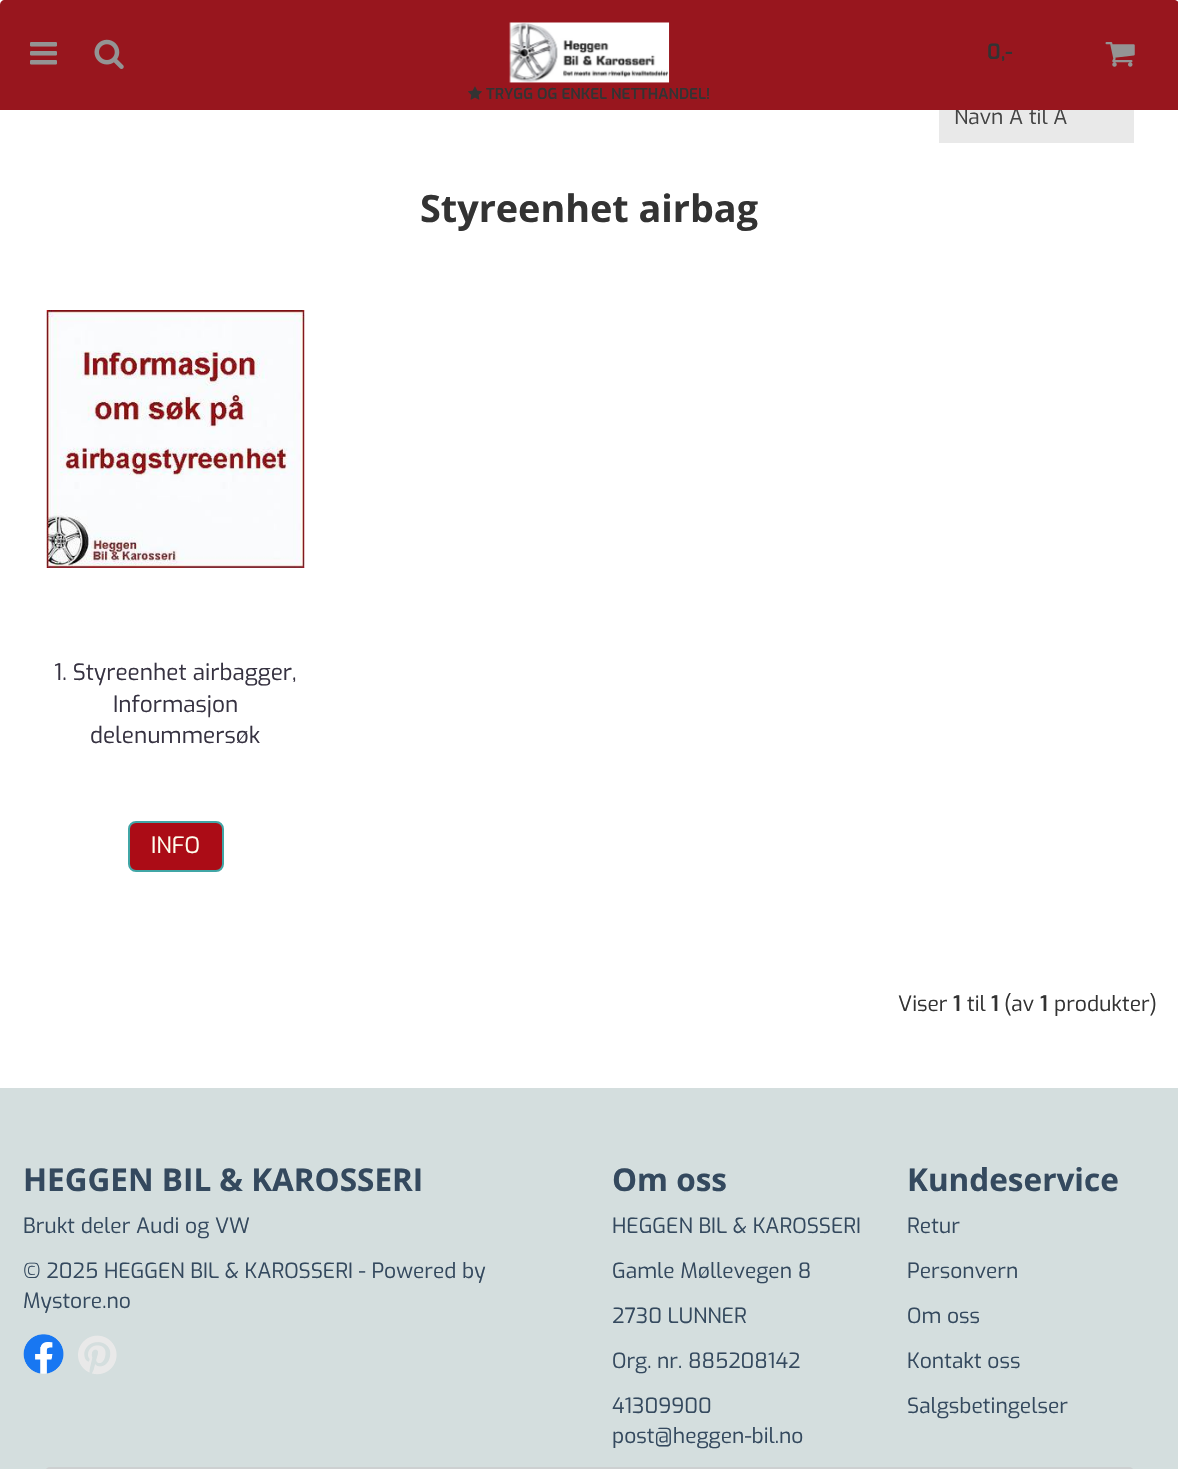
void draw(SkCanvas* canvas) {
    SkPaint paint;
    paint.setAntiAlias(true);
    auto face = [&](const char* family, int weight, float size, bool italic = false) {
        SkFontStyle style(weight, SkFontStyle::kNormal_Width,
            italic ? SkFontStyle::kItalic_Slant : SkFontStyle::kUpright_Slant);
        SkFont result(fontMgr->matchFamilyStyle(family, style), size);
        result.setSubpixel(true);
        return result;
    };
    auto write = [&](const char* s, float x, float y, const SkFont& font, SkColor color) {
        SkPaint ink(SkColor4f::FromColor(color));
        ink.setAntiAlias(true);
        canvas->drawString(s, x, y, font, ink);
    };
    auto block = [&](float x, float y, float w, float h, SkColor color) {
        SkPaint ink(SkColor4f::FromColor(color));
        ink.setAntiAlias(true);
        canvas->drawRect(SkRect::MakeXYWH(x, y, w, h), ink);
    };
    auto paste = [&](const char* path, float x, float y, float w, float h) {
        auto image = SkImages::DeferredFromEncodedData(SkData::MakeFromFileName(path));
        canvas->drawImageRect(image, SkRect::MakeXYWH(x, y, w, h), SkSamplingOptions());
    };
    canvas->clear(SK_ColorWHITE);
    block(939, 110, 195, 33, SkColorSetRGB(233, 233, 233));
    auto kFont1 = face("Exo", 400, 21);
    write("Navn A til Å", 954, 124, kFont1, SkColorSetRGB(68, 68, 68));
    paint.setColor(SkColorSetRGB(152, 22, 30));
    canvas->drawPath(SkPathBuilder().moveTo(5, 0).lineTo(1174, 0).cubicTo(1177, 0, 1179, 2, 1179, 5).lineTo(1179, 110).lineTo(0, 110).lineTo(0, 5).cubicTo(0, 2, 2, 0, 5, 0).close().detach(), paint);
    paste("pic1.png", 30, 42, 27, 23);
    paste("pic2.png", 94, 39, 30, 30);
    paste("pic3.png", 509, 22, 161, 61);
    auto kFont2 = face("Exo", 600, 21);
    write("0,-", 987, 59, kFont2, SkColorSetRGB(51, 51, 51));
    paste("pic4.png", 1105, 42, 30, 25);
    paste("pic5.png", 468, 86, 14, 14);
    auto kFont3 = face("Exo", 600, 15);
    write("TRYGG OG ENKEL NETTHANDEL!", 486, 99, kFont3, SkColorSetRGB(51, 51, 51));
    auto kFont4 = face("Open Sans", 700, 37.75f);
    write("Styreenhet airbag", 420, 222, kFont4, SkColorSetRGB(51, 51, 51));
    paste("pic6.png", 46, 310, 259, 258);
    auto kFont5 = face("Exo", 400, 22.5f);
    write("1. Styreenhet airbagger,", 54, 680, kFont5, SkColorSetRGB(54, 50, 65));
    write("Informasjon", 113, 712, kFont5, SkColorSetRGB(54, 50, 65));
    write("delenummersøk", 90, 743, kFont5, SkColorSetRGB(54, 50, 65));
    paint.setColor(SkColorSetRGB(171, 12, 22));
    canvas->drawRoundRect(SkRect::MakeXYWH(129, 822, 94, 49), 7, 7, paint);
    paint.setStyle(SkPaint::kStroke_Style);
    paint.setStrokeWidth(2);
    paint.setColor(SkColorSetRGB(65, 166, 166));
    canvas->drawRoundRect(SkRect::MakeXYWH(129, 822, 94, 49), 7, 7, paint);
    write("INFO", 151, 853, kFont5, SkColorSetRGB(255, 255, 238));
    write("Viser", 898, 1011, kFont1, SkColorSetRGB(51, 51, 51));
    write("1", 953, 1011, kFont2, SkColorSetRGB(51, 51, 51));
    write("til", 967, 1011, kFont1, SkColorSetRGB(51, 51, 51));
    write("1", 991, 1011, kFont2, SkColorSetRGB(51, 51, 51));
    write("(av", 1004, 1011, kFont1, SkColorSetRGB(51, 51, 51));
    write("1", 1040, 1011, kFont2, SkColorSetRGB(51, 51, 51));
    write("produkter)", 1054, 1011, kFont1, SkColorSetRGB(51, 51, 51));
    block(0, 1088, 1178, 381, SkColorSetRGB(212, 222, 222));
    auto kFont6 = face("Open Sans", 700, 31.5f);
    write("HEGGEN BIL & KAROSSERI", 23, 1191, kFont6, SkColorSetRGB(52, 73, 94));
    write("Brukt deler Audi og VW", 23, 1233, kFont1, SkColorSetRGB(52, 73, 94));
    write("© 2025 HEGGEN BIL & KAROSSERI - Powered by", 23, 1278, kFont1, SkColorSetRGB(52, 73, 94));
    write("Mystore.no", 23, 1308, kFont1, SkColorSetRGB(52, 73, 94));
    paste("pic7.png", 23, 1334, 41, 40);
    paste("pic8.png", 78, 1335, 39, 40);
    write("Om oss", 612, 1191, kFont6, SkColorSetRGB(52, 73, 94));
    write("HEGGEN BIL & KAROSSERI", 612, 1233, kFont1, SkColorSetRGB(52, 73, 94));
    write("Gamle Møllevegen 8", 612, 1278, kFont1, SkColorSetRGB(52, 73, 94));
    write("2730 LUNNER", 612, 1323, kFont1, SkColorSetRGB(52, 73, 94));
    write("Org. nr. 885208142", 612, 1368, kFont1, SkColorSetRGB(52, 73, 94));
    write("41309900", 612, 1413, kFont1, SkColorSetRGB(52, 73, 94));
    write("post@heggen-bil.no", 612, 1443, kFont1, SkColorSetRGB(52, 73, 94));
    write("Kundeservice", 907, 1191, kFont6, SkColorSetRGB(52, 73, 94));
    write("Retur", 907, 1233, kFont1, SkColorSetRGB(52, 73, 94));
    write("Personvern", 907, 1278, kFont1, SkColorSetRGB(52, 73, 94));
    write("Om oss", 907, 1323, kFont1, SkColorSetRGB(52, 73, 94));
    write("Kontakt oss", 907, 1368, kFont1, SkColorSetRGB(52, 73, 94));
    write("Salgsbetingelser", 907, 1413, kFont1, SkColorSetRGB(52, 73, 94));
    paint.setColor(SkColorSetRGB(205, 208, 209));
    canvas->drawRoundRect(SkRect::MakeXYWH(46, 1468, 1087, 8), 5, 5, paint);
}
